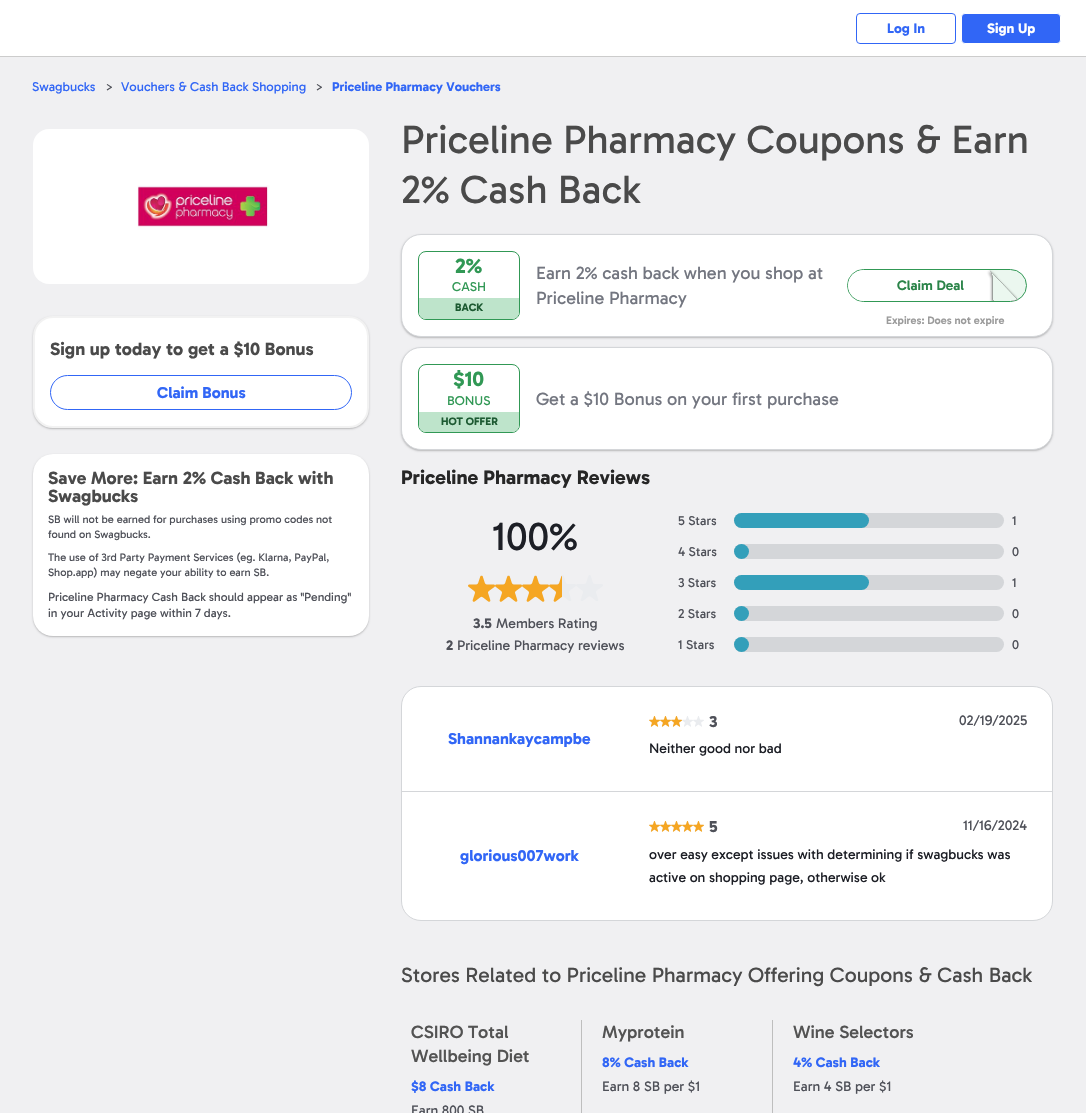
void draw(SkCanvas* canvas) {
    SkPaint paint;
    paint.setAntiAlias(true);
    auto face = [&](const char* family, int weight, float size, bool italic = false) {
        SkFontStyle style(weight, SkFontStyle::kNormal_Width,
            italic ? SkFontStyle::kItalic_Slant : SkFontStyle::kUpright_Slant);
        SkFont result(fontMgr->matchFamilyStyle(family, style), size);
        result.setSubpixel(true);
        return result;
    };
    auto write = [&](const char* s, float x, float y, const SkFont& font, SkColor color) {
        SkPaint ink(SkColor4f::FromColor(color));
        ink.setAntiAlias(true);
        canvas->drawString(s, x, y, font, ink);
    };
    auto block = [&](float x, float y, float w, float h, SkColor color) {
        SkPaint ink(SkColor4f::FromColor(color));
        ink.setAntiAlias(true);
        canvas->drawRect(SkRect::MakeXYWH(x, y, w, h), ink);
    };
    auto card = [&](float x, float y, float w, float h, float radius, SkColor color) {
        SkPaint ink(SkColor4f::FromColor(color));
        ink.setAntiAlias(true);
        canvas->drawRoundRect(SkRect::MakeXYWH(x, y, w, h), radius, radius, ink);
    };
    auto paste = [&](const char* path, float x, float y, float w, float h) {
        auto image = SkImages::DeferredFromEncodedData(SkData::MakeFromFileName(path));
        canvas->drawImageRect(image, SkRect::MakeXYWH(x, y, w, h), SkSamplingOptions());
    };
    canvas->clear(SK_ColorWHITE);
    block(0, 56, 1086, 1, SkColorSetRGB(204, 204, 204));
    paint.setStyle(SkPaint::kStroke_Style);
    paint.setStrokeWidth(1);
    paint.setColor(SkColorSetRGB(49, 102, 246));
    canvas->drawRoundRect(SkRect::MakeXYWH(856.5f, 13.5f, 99, 30), 3.5f, 3.5f, paint);
    auto kFont1 = face("Gabarito", 700, 14);
    write("Log In", 887, 33, kFont1, SkColorSetRGB(49, 102, 246));
    paint.setStyle(SkPaint::kFill_Style);
    canvas->drawRoundRect(SkRect::MakeXYWH(961.5f, 13.5f, 99, 30), 3.5f, 3.5f, paint);
    paint.setStyle(SkPaint::kStroke_Style);
    paint.setColor(SK_ColorWHITE);
    canvas->drawRoundRect(SkRect::MakeXYWH(961.5f, 13.5f, 99, 30), 3.5f, 3.5f, paint);
    write("Sign Up", 987, 33, kFont1, SK_ColorWHITE);
    block(0, 57, 1086, 1056, SkColorSetRGB(240, 240, 242));
    auto kFont2 = face("Gabarito", 400, 13);
    write("Swagbucks", 32, 91, kFont2, SkColorSetRGB(49, 102, 246));
    write(">", 105, 91, kFont2, SkColorSetRGB(79, 81, 89));
    write("Vouchers & Cash Back Shopping", 121, 91, kFont2, SkColorSetRGB(49, 102, 246));
    write(">", 315, 91, kFont2, SkColorSetRGB(79, 81, 89));
    auto kFont3 = face("Gabarito", 700, 13);
    write("Priceline Pharmacy Vouchers", 332, 91, kFont3, SkColorSetRGB(49, 102, 246));
    card(33, 129, 336, 155, 16, SK_ColorWHITE);
    paste("pic1.png", 137, 185, 133, 45);
    paint.setStyle(SkPaint::kFill_Style);
    paint.setColor(SkColorSetARGB(61, 0, 0, 0));
    paint.setMaskFilter(SkMaskFilter::MakeBlur(kNormal_SkBlurStyle, 1));
    canvas->drawRoundRect(SkRect::MakeXYWH(33, 317, 336, 112), 20, 20, paint);
    paint.setMaskFilter(nullptr);
    paint.setColor(SK_ColorWHITE);
    canvas->drawRoundRect(SkRect::MakeXYWH(34, 317, 334, 110), 19, 19, paint);
    paint.setStyle(SkPaint::kStroke_Style);
    paint.setStrokeWidth(2);
    paint.setColor(SkColorSetRGB(242, 242, 242));
    canvas->drawRoundRect(SkRect::MakeXYWH(34, 317, 334, 110), 19, 19, paint);
    auto kFont4 = face("Gabarito", 700, 18);
    write("Sign up today to get a $10 Bonus", 50, 355, kFont4, SkColorSetRGB(74, 74, 74));
    paint.setStrokeWidth(1);
    paint.setColor(SkColorSetRGB(49, 102, 246));
    canvas->drawRoundRect(SkRect::MakeXYWH(50.5f, 375.5f, 301, 34), 17, 17, paint);
    auto kFont5 = face("Gabarito", 700, 16);
    write("Claim Bonus", 157, 398, kFont5, SkColorSetRGB(49, 102, 246));
    paint.setStyle(SkPaint::kFill_Style);
    paint.setColor(SkColorSetARGB(61, 0, 0, 0));
    paint.setMaskFilter(SkMaskFilter::MakeBlur(kNormal_SkBlurStyle, 1));
    canvas->drawRoundRect(SkRect::MakeXYWH(33, 455, 336, 182), 20, 20, paint);
    paint.setMaskFilter(nullptr);
    card(33, 454, 336, 182, 20, SK_ColorWHITE);
    write("Save More: Earn 2% Cash Back with", 48, 484, kFont4, SkColorSetRGB(74, 74, 74));
    write("Swagbucks", 48, 502, kFont4, SkColorSetRGB(74, 74, 74));
    auto kFont6 = face("Gabarito", 400, 11);
    write("SB will not be earned for purchases using promo codes not", 48, 523, kFont6, SkColorSetRGB(79, 81, 89));
    write("found on Swagbucks.", 48, 538, kFont6, SkColorSetRGB(79, 81, 89));
    write("The use of 3rd Party Payment Services (eg. Klarna, PayPal,", 48, 561, kFont6, SkColorSetRGB(79, 81, 89));
    write("Shop.app) may negate your ability to earn SB.", 48, 576, kFont6, SkColorSetRGB(79, 81, 89));
    auto kFont7 = face("Gabarito", 400, 12);
    write("Priceline Pharmacy Cash Back should appear as \"Pending\"", 48, 601, kFont7, SkColorSetRGB(79, 81, 89));
    write("in your Activity page within 7 days.", 48, 617, kFont7, SkColorSetRGB(79, 81, 89));
    auto kFont8 = face("Gabarito", 400, 40);
    write("Priceline Pharmacy Coupons & Earn", 401, 153, kFont8, SkColorSetRGB(74, 74, 74));
    write("2% Cash Back", 401, 203, kFont8, SkColorSetRGB(74, 74, 74));
    paint.setMaskFilter(SkMaskFilter::MakeBlur(kNormal_SkBlurStyle, 1));
    canvas->drawRoundRect(SkRect::MakeXYWH(401, 235, 652, 103), 20, 20, paint);
    paint.setMaskFilter(nullptr);
    paint.setColor(SK_ColorWHITE);
    canvas->drawRoundRect(SkRect::MakeXYWH(401.5f, 234.5f, 651, 102), 19.5f, 19.5f, paint);
    paint.setStyle(SkPaint::kStroke_Style);
    paint.setColor(SkColorSetRGB(212, 214, 217));
    canvas->drawRoundRect(SkRect::MakeXYWH(401.5f, 234.5f, 651, 102), 19.5f, 19.5f, paint);
    paint.setColor(SkColorSetRGB(49, 152, 85));
    canvas->drawRoundRect(SkRect::MakeXYWH(418.5f, 251.5f, 101, 68), 7.5f, 7.5f, paint);
    auto kFont9 = face("Gabarito", 700, 21);
    write("2%", 455, 273, kFont9, SkColorSetRGB(49, 152, 85));
    write("CASH", 452, 291, kFont2, SkColorSetRGB(49, 152, 85));
    paint.setStyle(SkPaint::kFill_Style);
    paint.setColor(SkColorSetRGB(190, 228, 203));
    canvas->drawPath(SkPathBuilder().moveTo(419, 298).lineTo(519, 298).lineTo(519, 312).cubicTo(519, 316, 516, 319, 512, 319).lineTo(426, 319).cubicTo(422, 319, 419, 316, 419, 312).close().detach(), paint);
    auto kFont10 = face("Gabarito", 700, 11);
    write("BACK", 455, 311, kFont10, SkColorSetRGB(29, 90, 50));
    auto kFont11 = face("Gabarito", 400, 18);
    write("Earn 2% cash back when you shop at", 536, 279, kFont11, SkColorSetRGB(115, 118, 128));
    write("Priceline Pharmacy", 536, 304, kFont11, SkColorSetRGB(115, 118, 128));
    paint.setColor(SkColorSetRGB(235, 247, 239));
    canvas->drawRoundRect(SkRect::MakeXYWH(847.5f, 269.5f, 179, 32), 16, 16, paint);
    paint.setStyle(SkPaint::kStroke_Style);
    paint.setColor(SkColorSetRGB(49, 152, 85));
    canvas->drawRoundRect(SkRect::MakeXYWH(847.5f, 269.5f, 179, 32), 16, 16, paint);
    paint.setStyle(SkPaint::kFill_Style);
    paint.setColor(SK_ColorWHITE);
    canvas->drawPath(SkPathBuilder().moveTo(863.5f, 270).lineTo(986, 270).lineTo(986, 301).lineTo(863.5f, 301).cubicTo(855, 301, 848, 294, 848, 285.5f).cubicTo(848, 277, 855, 270, 863.5f, 270).close().detach(), paint);
    auto kFont12 = face("Gabarito", 600, 14);
    write("Claim Deal", 897, 290, kFont12, SkColorSetRGB(43, 132, 73));
    paste("pic2.png", 986, 270, 32, 31);
    auto kFont13 = face("Gabarito", 600, 11);
    write("Expires: Does not expire", 886, 324, kFont13, SkColorSetRGB(155, 155, 155));
    paint.setColor(SkColorSetARGB(61, 0, 0, 0));
    paint.setMaskFilter(SkMaskFilter::MakeBlur(kNormal_SkBlurStyle, 1));
    canvas->drawRoundRect(SkRect::MakeXYWH(401, 348, 652, 103), 20, 20, paint);
    paint.setMaskFilter(nullptr);
    paint.setColor(SK_ColorWHITE);
    canvas->drawRoundRect(SkRect::MakeXYWH(401.5f, 347.5f, 651, 102), 19.5f, 19.5f, paint);
    paint.setStyle(SkPaint::kStroke_Style);
    paint.setColor(SkColorSetRGB(212, 214, 217));
    canvas->drawRoundRect(SkRect::MakeXYWH(401.5f, 347.5f, 651, 102), 19.5f, 19.5f, paint);
    paint.setColor(SkColorSetRGB(49, 152, 85));
    canvas->drawRoundRect(SkRect::MakeXYWH(418.5f, 364.5f, 101, 68), 7.5f, 7.5f, paint);
    write("$10", 453, 386, kFont9, SkColorSetRGB(49, 152, 85));
    write("BONUS", 447, 405, kFont2, SkColorSetRGB(49, 152, 85));
    paint.setStyle(SkPaint::kFill_Style);
    paint.setColor(SkColorSetRGB(190, 228, 203));
    canvas->drawPath(SkPathBuilder().moveTo(419, 412).lineTo(519, 412).lineTo(519, 425).cubicTo(519, 429, 516, 432, 512, 432).lineTo(426, 432).cubicTo(422, 432, 419, 429, 419, 425).close().detach(), paint);
    write("HOT OFFER", 441, 425, kFont10, SkColorSetRGB(29, 90, 50));
    write("Get a $10 Bonus on your first purchase", 536, 405, kFont11, SkColorSetRGB(115, 118, 128));
    auto kFont14 = face("Gabarito", 700, 20);
    write("Priceline Pharmacy Reviews", 401, 484, kFont14, SkColorSetRGB(38, 38, 38));
    write("100%", 492, 550, kFont8, SkColorSetRGB(29, 31, 38));
    paste("pic3.png", 468, 575, 135, 26);
    paste("pic4.png", 468, 575, 94, 27);
    write("3.5", 473, 628, kFont1, SkColorSetRGB(79, 81, 89));
    auto kFont15 = face("Gabarito", 400, 14);
    write("Members Rating", 496, 628, kFont15, SkColorSetRGB(79, 81, 89));
    write("2", 446, 650, kFont1, SkColorSetRGB(79, 81, 89));
    write("Priceline Pharmacy reviews", 457, 650, kFont15, SkColorSetRGB(79, 81, 89));
    write("5 Stars", 678, 525, kFont2, SkColorSetRGB(79, 81, 89));
    card(734, 513, 270, 15, 7.5f, SkColorSetRGB(212, 214, 217));
    card(734, 513, 135, 15, 7.5f, SkColorSetRGB(51, 159, 186));
    write("1", 1012, 525, kFont2, SkColorSetRGB(79, 81, 89));
    write("4 Stars", 678, 556, kFont2, SkColorSetRGB(79, 81, 89));
    card(734, 544, 270, 15, 7.5f, SkColorSetRGB(212, 214, 217));
    paint.setColor(SkColorSetRGB(51, 159, 186));
    canvas->drawCircle(741.5f, 551.5f, 7.5f, paint);
    write("0", 1012, 556, kFont2, SkColorSetRGB(79, 81, 89));
    write("3 Stars", 678, 587, kFont2, SkColorSetRGB(79, 81, 89));
    card(734, 575, 270, 15, 7.5f, SkColorSetRGB(212, 214, 217));
    card(734, 575, 135, 15, 7.5f, SkColorSetRGB(51, 159, 186));
    write("1", 1012, 587, kFont2, SkColorSetRGB(79, 81, 89));
    write("2 Stars", 678, 618, kFont2, SkColorSetRGB(79, 81, 89));
    card(734, 606, 270, 15, 7.5f, SkColorSetRGB(212, 214, 217));
    canvas->drawCircle(741.5f, 613.5f, 7.5f, paint);
    write("0", 1012, 618, kFont2, SkColorSetRGB(79, 81, 89));
    write("1 Stars", 678, 649, kFont2, SkColorSetRGB(79, 81, 89));
    card(734, 637, 270, 15, 7.5f, SkColorSetRGB(212, 214, 217));
    canvas->drawCircle(741.5f, 644.5f, 7.5f, paint);
    write("0", 1012, 649, kFont2, SkColorSetRGB(79, 81, 89));
    paint.setColor(SK_ColorWHITE);
    canvas->drawRoundRect(SkRect::MakeXYWH(401.5f, 686.5f, 651, 234), 19.5f, 19.5f, paint);
    paint.setStyle(SkPaint::kStroke_Style);
    paint.setColor(SkColorSetRGB(212, 214, 217));
    canvas->drawRoundRect(SkRect::MakeXYWH(401.5f, 686.5f, 651, 234), 19.5f, 19.5f, paint);
    block(402, 791, 650, 1, SkColorSetRGB(212, 214, 217));
    write("Shannankaycampbe", 448, 744, kFont5, SkColorSetRGB(49, 102, 246));
    paste("pic5.png", 649, 716, 55, 11);
    paste("pic6.png", 649, 716, 33, 11);
    write("3", 709, 727, kFont5, SkColorSetRGB(79, 81, 89));
    write("02/19/2025", 959, 725, kFont15, SkColorSetRGB(79, 81, 89));
    write("Neither good nor bad", 649, 753, kFont15, SkColorSetRGB(29, 31, 38));
    write("glorious007work", 460, 861, kFont5, SkColorSetRGB(49, 102, 246));
    paste("pic5.png", 649, 821, 55, 11);
    paste("pic7.png", 649, 821, 55, 11);
    write("5", 709, 832, kFont5, SkColorSetRGB(79, 81, 89));
    write("11/16/2024", 963, 830, kFont15, SkColorSetRGB(79, 81, 89));
    write("over easy except issues with determining if swagbucks was", 649, 859, kFont15, SkColorSetRGB(29, 31, 38));
    write("active on shopping page, otherwise ok", 649, 882, kFont15, SkColorSetRGB(29, 31, 38));
    auto kFont16 = face("Gabarito", 400, 21);
    write("Stores Related to Priceline Pharmacy Offering Coupons & Cash Back", 401, 982, kFont16, SkColorSetRGB(74, 74, 74));
    block(581, 1020, 1, 93, SkColorSetRGB(190, 190, 190));
    auto kFont17 = face("Gabarito", 500, 18);
    write("CSIRO Total", 411, 1038, kFont17, SkColorSetRGB(83, 83, 83));
    write("Wellbeing Diet", 411, 1062, kFont17, SkColorSetRGB(83, 83, 83));
    write("$8 Cash Back", 411, 1091, kFont1, SkColorSetRGB(49, 102, 246));
    write("Earn 800 SB", 411, 1115, kFont15, SkColorSetRGB(79, 81, 89));
    block(772, 1020, 1, 93, SkColorSetRGB(190, 190, 190));
    write("Myprotein", 602, 1038, kFont17, SkColorSetRGB(83, 83, 83));
    write("8% Cash Back", 602, 1067, kFont1, SkColorSetRGB(49, 102, 246));
    write("Earn 8 SB per $1", 602, 1091, kFont15, SkColorSetRGB(79, 81, 89));
    write("Wine Selectors", 793, 1038, kFont17, SkColorSetRGB(83, 83, 83));
    write("4% Cash Back", 793, 1067, kFont1, SkColorSetRGB(49, 102, 246));
    write("Earn 4 SB per $1", 793, 1091, kFont15, SkColorSetRGB(79, 81, 89));
}
